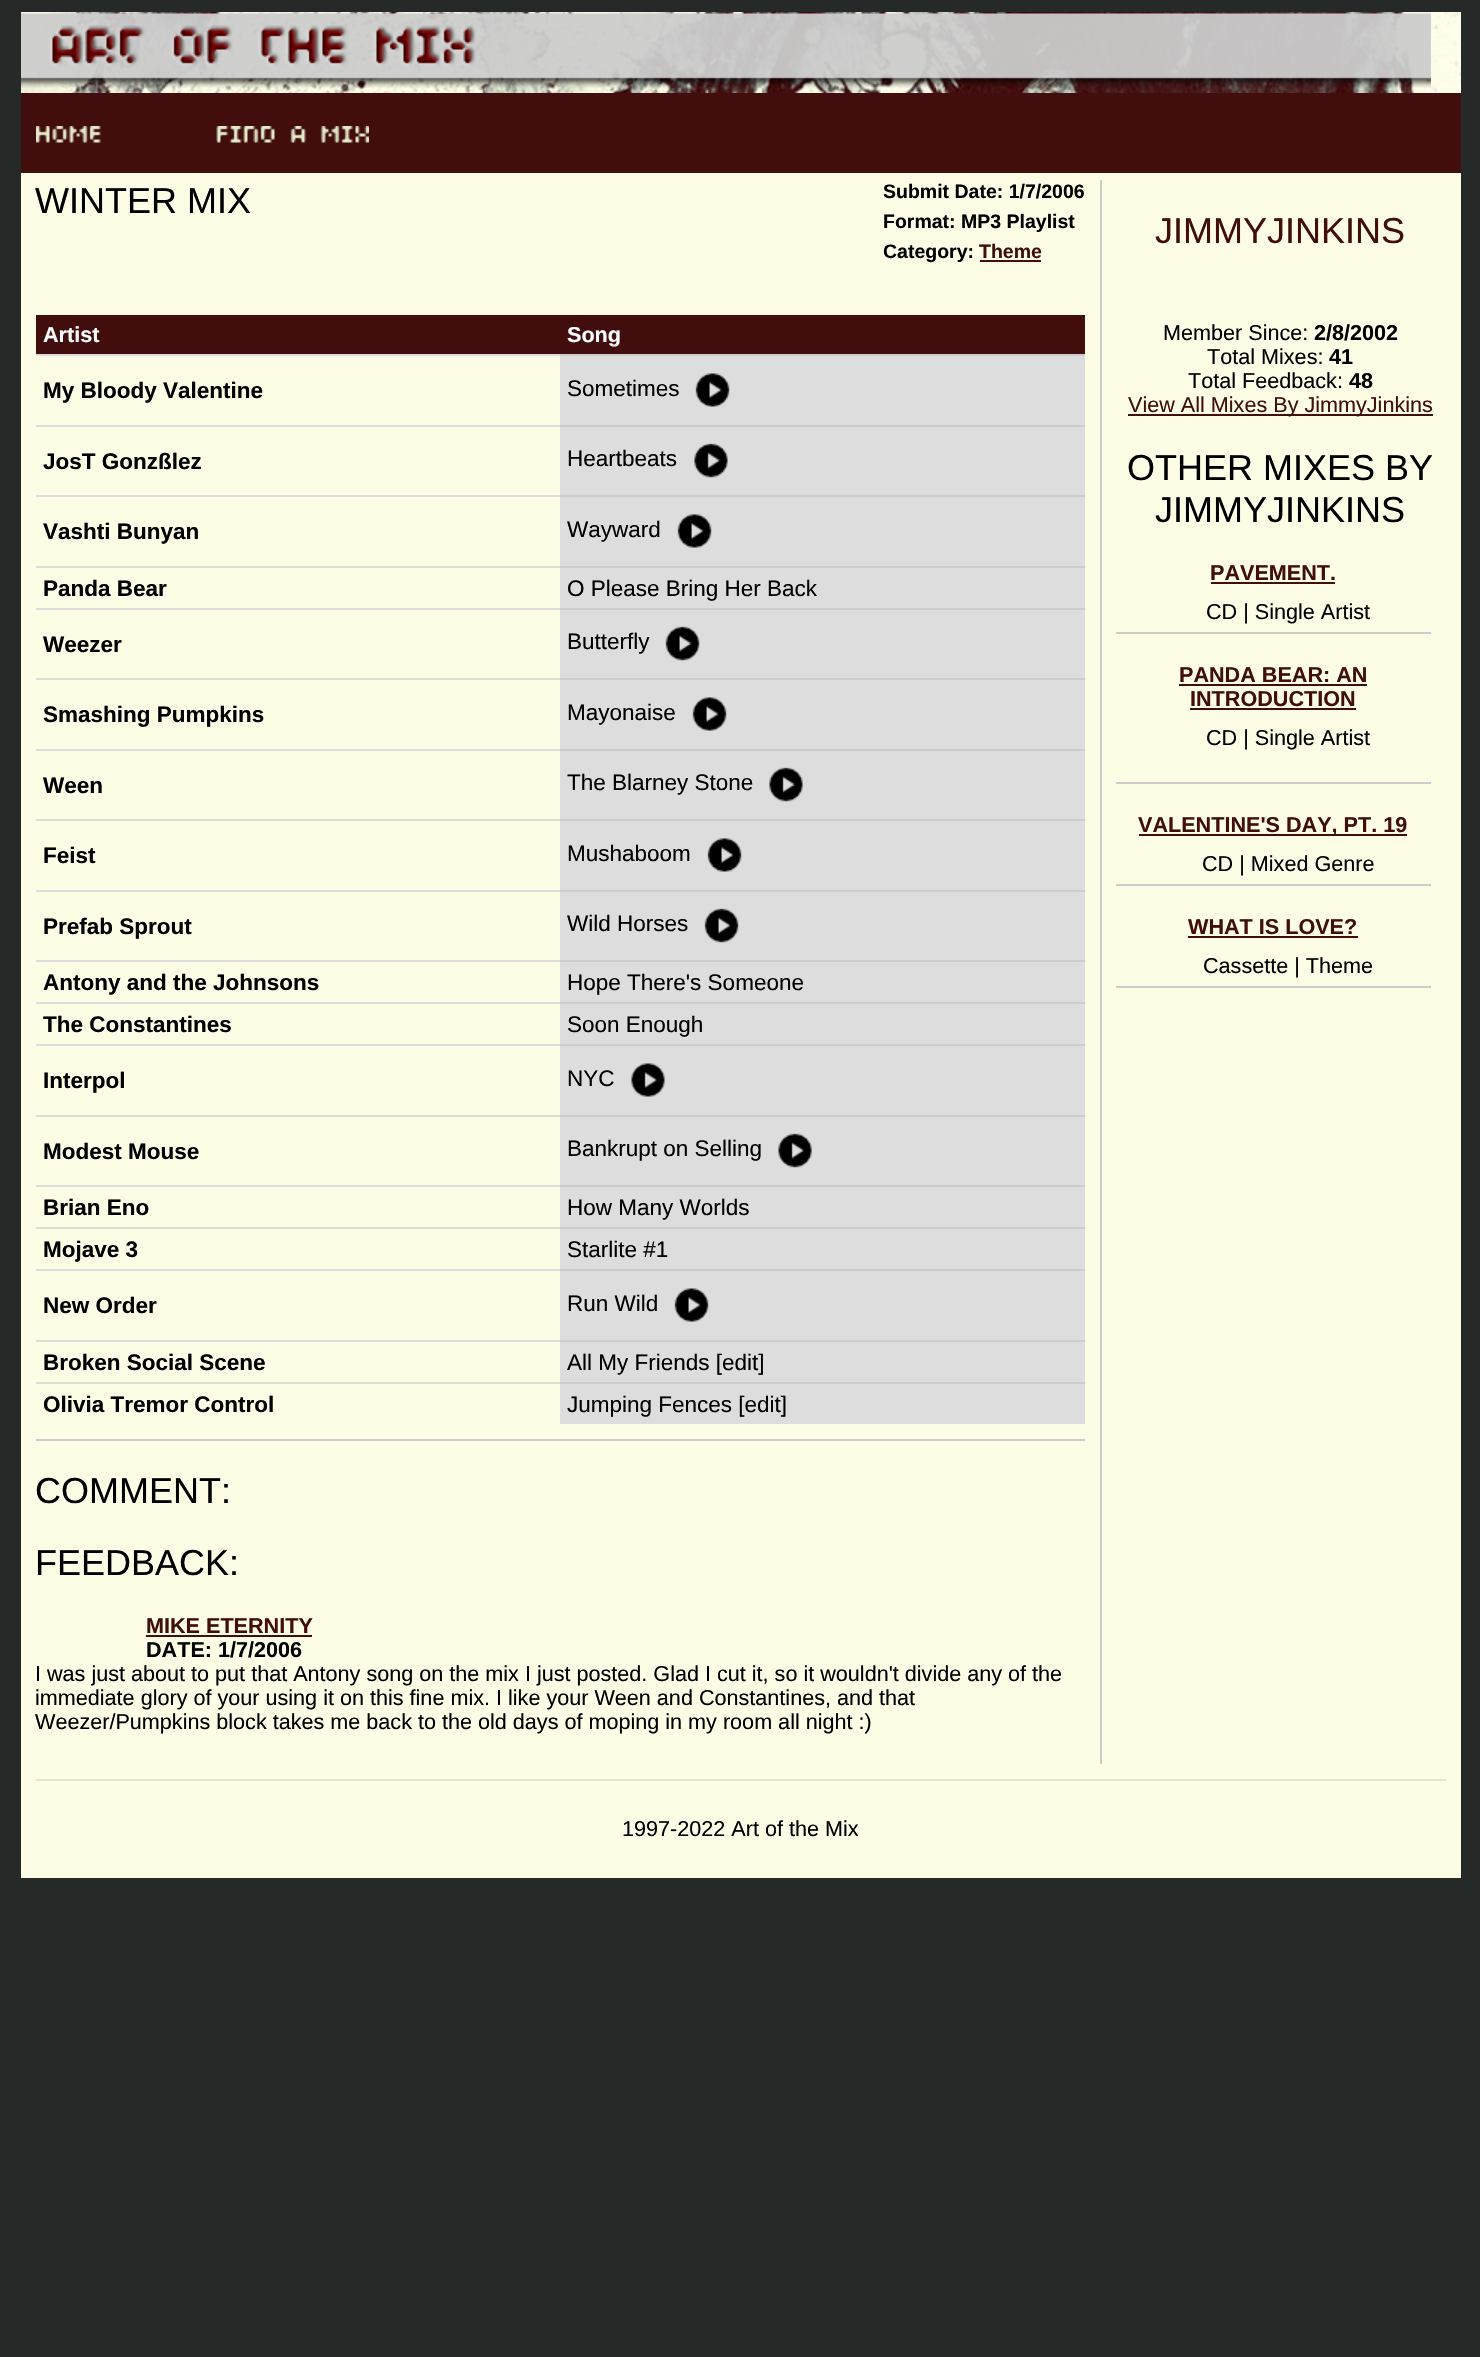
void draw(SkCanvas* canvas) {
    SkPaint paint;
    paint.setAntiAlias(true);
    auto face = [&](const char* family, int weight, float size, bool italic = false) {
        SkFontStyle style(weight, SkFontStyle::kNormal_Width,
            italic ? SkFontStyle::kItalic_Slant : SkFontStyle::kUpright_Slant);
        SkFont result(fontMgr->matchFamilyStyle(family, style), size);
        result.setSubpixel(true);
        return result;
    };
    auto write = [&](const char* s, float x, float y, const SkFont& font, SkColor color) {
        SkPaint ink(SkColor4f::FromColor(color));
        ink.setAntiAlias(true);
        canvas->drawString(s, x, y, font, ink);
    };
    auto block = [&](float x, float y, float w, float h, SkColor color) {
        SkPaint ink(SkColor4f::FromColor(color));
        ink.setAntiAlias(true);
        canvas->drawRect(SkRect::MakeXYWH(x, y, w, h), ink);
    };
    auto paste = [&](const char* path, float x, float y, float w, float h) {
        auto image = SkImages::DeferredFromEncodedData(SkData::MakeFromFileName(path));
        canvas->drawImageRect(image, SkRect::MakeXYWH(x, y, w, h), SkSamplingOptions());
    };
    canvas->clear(SkColorSetRGB(37, 42, 41));
    block(21, 173, 1440, 1705, SkColorSetRGB(253, 253, 229));
    paste("pic1.png", 21, 12, 1440, 81);
    paste("pic2.png", 21, 12, 1410, 76);
    block(21, 93, 1440, 80, SkColorSetRGB(65, 13, 13));
    paste("pic3.png", 36, 126, 65, 17);
    paste("pic4.png", 216, 126, 153, 17);
    block(1100, 180, 2, 1584, SkColorSetRGB(204, 204, 204));
    auto kFont1 = face("Liberation Sans", 400, 36);
    write("WINTER MIX", 35, 213, kFont1, SK_ColorBLACK);
    auto kFont2 = face("Liberation Sans", 700, 19.5f);
    write("Submit Date: 1/7/2006", 883, 198, kFont2, SK_ColorBLACK);
    write("Format: MP3 Playlist", 883, 228, kFont2, SK_ColorBLACK);
    write("Category:", 883, 258, kFont2, SK_ColorBLACK);
    write("Theme", 979, 258, kFont2, SkColorSetRGB(65, 13, 13));
    block(980, 260, 61, 2, SkColorSetRGB(65, 13, 13));
    block(36, 315, 1049, 39, SkColorSetRGB(65, 13, 13));
    auto kFont3 = face("Liberation Sans", 700, 21.6f);
    write("Artist", 43, 342, kFont3, SK_ColorWHITE);
    write("Song", 567, 342, kFont3, SK_ColorWHITE);
    block(36, 354, 524, 2, SkColorSetRGB(221, 221, 221));
    auto kFont4 = face("Liberation Sans", 700, 22.5f);
    write("My Bloody Valentine", 43, 398, kFont4, SK_ColorBLACK);
    block(560, 356, 525, 69, SkColorSetRGB(221, 221, 221));
    block(560, 354, 525, 2, SkColorSetRGB(204, 204, 204));
    auto kFont5 = face("Liberation Sans", 400, 22.5f);
    write("Sometimes", 567, 396, kFont5, SK_ColorBLACK);
    paste("pic5.png", 695, 373, 35, 34);
    block(36, 425, 524, 2, SkColorSetRGB(221, 221, 221));
    write("JosT Gonzßlez", 43, 469, kFont4, SK_ColorBLACK);
    block(560, 427, 525, 68, SkColorSetRGB(221, 221, 221));
    block(560, 425, 525, 2, SkColorSetRGB(204, 204, 204));
    write("Heartbeats", 567, 466, kFont5, SK_ColorBLACK);
    paste("pic6.png", 694, 443, 34, 35);
    block(36, 495, 524, 2, SkColorSetRGB(221, 221, 221));
    write("Vashti Bunyan", 43, 539, kFont4, SK_ColorBLACK);
    block(560, 497, 525, 69, SkColorSetRGB(221, 221, 221));
    block(560, 495, 525, 2, SkColorSetRGB(204, 204, 204));
    write("Wayward", 567, 537, kFont5, SK_ColorBLACK);
    paste("pic5.png", 677, 514, 35, 34);
    block(36, 566, 524, 2, SkColorSetRGB(221, 221, 221));
    write("Panda Bear", 43, 596, kFont4, SK_ColorBLACK);
    block(560, 568, 525, 40, SkColorSetRGB(221, 221, 221));
    block(560, 566, 525, 2, SkColorSetRGB(204, 204, 204));
    write("O Please Bring Her Back", 567, 596, kFont5, SK_ColorBLACK);
    block(36, 608, 524, 2, SkColorSetRGB(221, 221, 221));
    write("Weezer", 43, 652, kFont4, SK_ColorBLACK);
    block(560, 610, 525, 68, SkColorSetRGB(221, 221, 221));
    block(560, 608, 525, 2, SkColorSetRGB(204, 204, 204));
    write("Butterfly", 567, 649, kFont5, SK_ColorBLACK);
    paste("pic7.png", 665, 626, 35, 35);
    block(36, 678, 524, 2, SkColorSetRGB(221, 221, 221));
    write("Smashing Pumpkins", 43, 722, kFont4, SK_ColorBLACK);
    block(560, 680, 525, 69, SkColorSetRGB(221, 221, 221));
    block(560, 678, 525, 2, SkColorSetRGB(204, 204, 204));
    write("Mayonaise", 567, 720, kFont5, SK_ColorBLACK);
    paste("pic5.png", 692, 697, 35, 34);
    block(36, 749, 524, 2, SkColorSetRGB(221, 221, 221));
    write("Ween", 43, 793, kFont4, SK_ColorBLACK);
    block(560, 751, 525, 68, SkColorSetRGB(221, 221, 221));
    block(560, 749, 525, 2, SkColorSetRGB(204, 204, 204));
    write("The Blarney Stone", 567, 790, kFont5, SK_ColorBLACK);
    paste("pic6.png", 769, 767, 34, 35);
    block(36, 819, 524, 2, SkColorSetRGB(221, 221, 221));
    write("Feist", 43, 863, kFont4, SK_ColorBLACK);
    block(560, 821, 525, 69, SkColorSetRGB(221, 221, 221));
    block(560, 819, 525, 2, SkColorSetRGB(204, 204, 204));
    write("Mushaboom", 567, 861, kFont5, SK_ColorBLACK);
    paste("pic5.png", 707, 838, 35, 34);
    block(36, 890, 524, 2, SkColorSetRGB(221, 221, 221));
    write("Prefab Sprout", 43, 934, kFont4, SK_ColorBLACK);
    block(560, 892, 525, 68, SkColorSetRGB(221, 221, 221));
    block(560, 890, 525, 2, SkColorSetRGB(204, 204, 204));
    write("Wild Horses", 567, 931, kFont5, SK_ColorBLACK);
    paste("pic7.png", 704, 908, 35, 35);
    block(36, 960, 524, 2, SkColorSetRGB(221, 221, 221));
    write("Antony and the Johnsons", 43, 990, kFont4, SK_ColorBLACK);
    block(560, 962, 525, 40, SkColorSetRGB(221, 221, 221));
    block(560, 960, 525, 2, SkColorSetRGB(204, 204, 204));
    write("Hope There's Someone", 567, 990, kFont5, SK_ColorBLACK);
    block(36, 1002, 524, 2, SkColorSetRGB(221, 221, 221));
    write("The Constantines", 43, 1032, kFont4, SK_ColorBLACK);
    block(560, 1004, 525, 40, SkColorSetRGB(221, 221, 221));
    block(560, 1002, 525, 2, SkColorSetRGB(204, 204, 204));
    write("Soon Enough", 567, 1032, kFont5, SK_ColorBLACK);
    block(36, 1044, 524, 2, SkColorSetRGB(221, 221, 221));
    write("Interpol", 43, 1088, kFont4, SK_ColorBLACK);
    block(560, 1046, 525, 69, SkColorSetRGB(221, 221, 221));
    block(560, 1044, 525, 2, SkColorSetRGB(204, 204, 204));
    write("NYC", 567, 1086, kFont5, SK_ColorBLACK);
    paste("pic8.png", 631, 1063, 34, 34);
    block(36, 1115, 524, 2, SkColorSetRGB(221, 221, 221));
    write("Modest Mouse", 43, 1159, kFont4, SK_ColorBLACK);
    block(560, 1117, 525, 68, SkColorSetRGB(221, 221, 221));
    block(560, 1115, 525, 2, SkColorSetRGB(204, 204, 204));
    write("Bankrupt on Selling", 567, 1156, kFont5, SK_ColorBLACK);
    paste("pic6.png", 778, 1133, 34, 35);
    block(36, 1185, 524, 2, SkColorSetRGB(221, 221, 221));
    write("Brian Eno", 43, 1215, kFont4, SK_ColorBLACK);
    block(560, 1187, 525, 40, SkColorSetRGB(221, 221, 221));
    block(560, 1185, 525, 2, SkColorSetRGB(204, 204, 204));
    write("How Many Worlds", 567, 1215, kFont5, SK_ColorBLACK);
    block(36, 1227, 524, 2, SkColorSetRGB(221, 221, 221));
    write("Mojave 3", 43, 1257, kFont4, SK_ColorBLACK);
    block(560, 1229, 525, 40, SkColorSetRGB(221, 221, 221));
    block(560, 1227, 525, 2, SkColorSetRGB(204, 204, 204));
    write("Starlite #1", 567, 1257, kFont5, SK_ColorBLACK);
    block(36, 1269, 524, 2, SkColorSetRGB(221, 221, 221));
    write("New Order", 43, 1313, kFont4, SK_ColorBLACK);
    block(560, 1271, 525, 69, SkColorSetRGB(221, 221, 221));
    block(560, 1269, 525, 2, SkColorSetRGB(204, 204, 204));
    write("Run Wild", 567, 1311, kFont5, SK_ColorBLACK);
    paste("pic5.png", 674, 1288, 35, 34);
    block(36, 1340, 524, 2, SkColorSetRGB(221, 221, 221));
    write("Broken Social Scene", 43, 1370, kFont4, SK_ColorBLACK);
    block(560, 1342, 525, 40, SkColorSetRGB(221, 221, 221));
    block(560, 1340, 525, 2, SkColorSetRGB(204, 204, 204));
    write("All My Friends [edit]", 567, 1370, kFont5, SK_ColorBLACK);
    block(36, 1382, 524, 2, SkColorSetRGB(221, 221, 221));
    write("Olivia Tremor Control", 43, 1412, kFont4, SK_ColorBLACK);
    block(560, 1384, 525, 40, SkColorSetRGB(221, 221, 221));
    block(560, 1382, 525, 2, SkColorSetRGB(204, 204, 204));
    write("Jumping Fences [edit]", 567, 1412, kFont5, SK_ColorBLACK);
    block(36, 1439, 1049, 2, SkColorSetRGB(204, 204, 204));
    write("COMMENT:", 35, 1503, kFont1, SK_ColorBLACK);
    write("FEEDBACK:", 35, 1575, kFont1, SK_ColorBLACK);
    write("MIKE ETERNITY", 146, 1633, kFont3, SkColorSetRGB(65, 13, 13));
    block(146, 1635, 166, 2, SkColorSetRGB(65, 13, 13));
    write("DATE: 1/7/2006", 146, 1657, kFont3, SK_ColorBLACK);
    auto kFont6 = face("Liberation Sans", 400, 21.6f);
    write("I was just about to put that Antony song on the mix I just posted. Glad I cut it, so it wouldn't divide any of the", 35, 1681, kFont6, SK_ColorBLACK);
    write("immediate glory of your using it on this fine mix. I like your Ween and Constantines, and that", 35, 1705, kFont6, SK_ColorBLACK);
    write("Weezer/Pumpkins block takes me back to the old days of moping in my room all night :)", 35, 1729, kFont6, SK_ColorBLACK);
    write("JIMMYJINKINS", 1155, 243, kFont1, SkColorSetRGB(65, 13, 13));
    write("Member Since:", 1163, 340, kFont6, SK_ColorBLACK);
    write("2/8/2002", 1314, 340, kFont3, SK_ColorBLACK);
    write("Total Mixes:", 1207, 364, kFont6, SK_ColorBLACK);
    write("41", 1329, 364, kFont3, SK_ColorBLACK);
    write("Total Feedback:", 1188, 388, kFont6, SK_ColorBLACK);
    write("48", 1349, 388, kFont3, SK_ColorBLACK);
    block(1128, 414, 305, 2, SkColorSetRGB(65, 13, 13));
    write("View All Mixes By JimmyJinkins", 1128, 412, kFont6, SkColorSetRGB(65, 13, 13));
    write("OTHER MIXES BY", 1127, 480, kFont1, SK_ColorBLACK);
    write("JIMMYJINKINS", 1155, 522, kFont1, SK_ColorBLACK);
    block(1116, 632, 315, 2, SkColorSetRGB(204, 204, 204));
    write("PAVEMENT.", 1210, 580, kFont3, SkColorSetRGB(65, 13, 13));
    block(1211, 582, 124, 2, SkColorSetRGB(65, 13, 13));
    write("CD | Single Artist", 1206, 619, kFont6, SK_ColorBLACK);
    block(1116, 782, 315, 2, SkColorSetRGB(204, 204, 204));
    write("PANDA BEAR: AN", 1179, 682, kFont3, SkColorSetRGB(65, 13, 13));
    block(1179, 684, 188, 2, SkColorSetRGB(65, 13, 13));
    write("INTRODUCTION", 1190, 706, kFont3, SkColorSetRGB(65, 13, 13));
    block(1190, 708, 166, 2, SkColorSetRGB(65, 13, 13));
    write("CD | Single Artist", 1206, 745, kFont6, SK_ColorBLACK);
    block(1116, 884, 315, 2, SkColorSetRGB(204, 204, 204));
    block(1139, 834, 268, 2, SkColorSetRGB(65, 13, 13));
    write("VALENTINE'S DAY, PT. 19", 1138, 832, kFont3, SkColorSetRGB(65, 13, 13));
    write("CD | Mixed Genre", 1202, 871, kFont6, SK_ColorBLACK);
    block(1116, 986, 315, 2, SkColorSetRGB(204, 204, 204));
    write("WHAT IS LOVE?", 1188, 934, kFont3, SkColorSetRGB(65, 13, 13));
    block(1188, 936, 170, 2, SkColorSetRGB(65, 13, 13));
    write("Cassette | Theme", 1203, 973, kFont6, SK_ColorBLACK);
    block(36, 1779, 1410, 2, SkColorSetRGB(227, 232, 201));
    write("1997-2022 Art of the Mix", 622, 1836, kFont6, SK_ColorBLACK);
}
